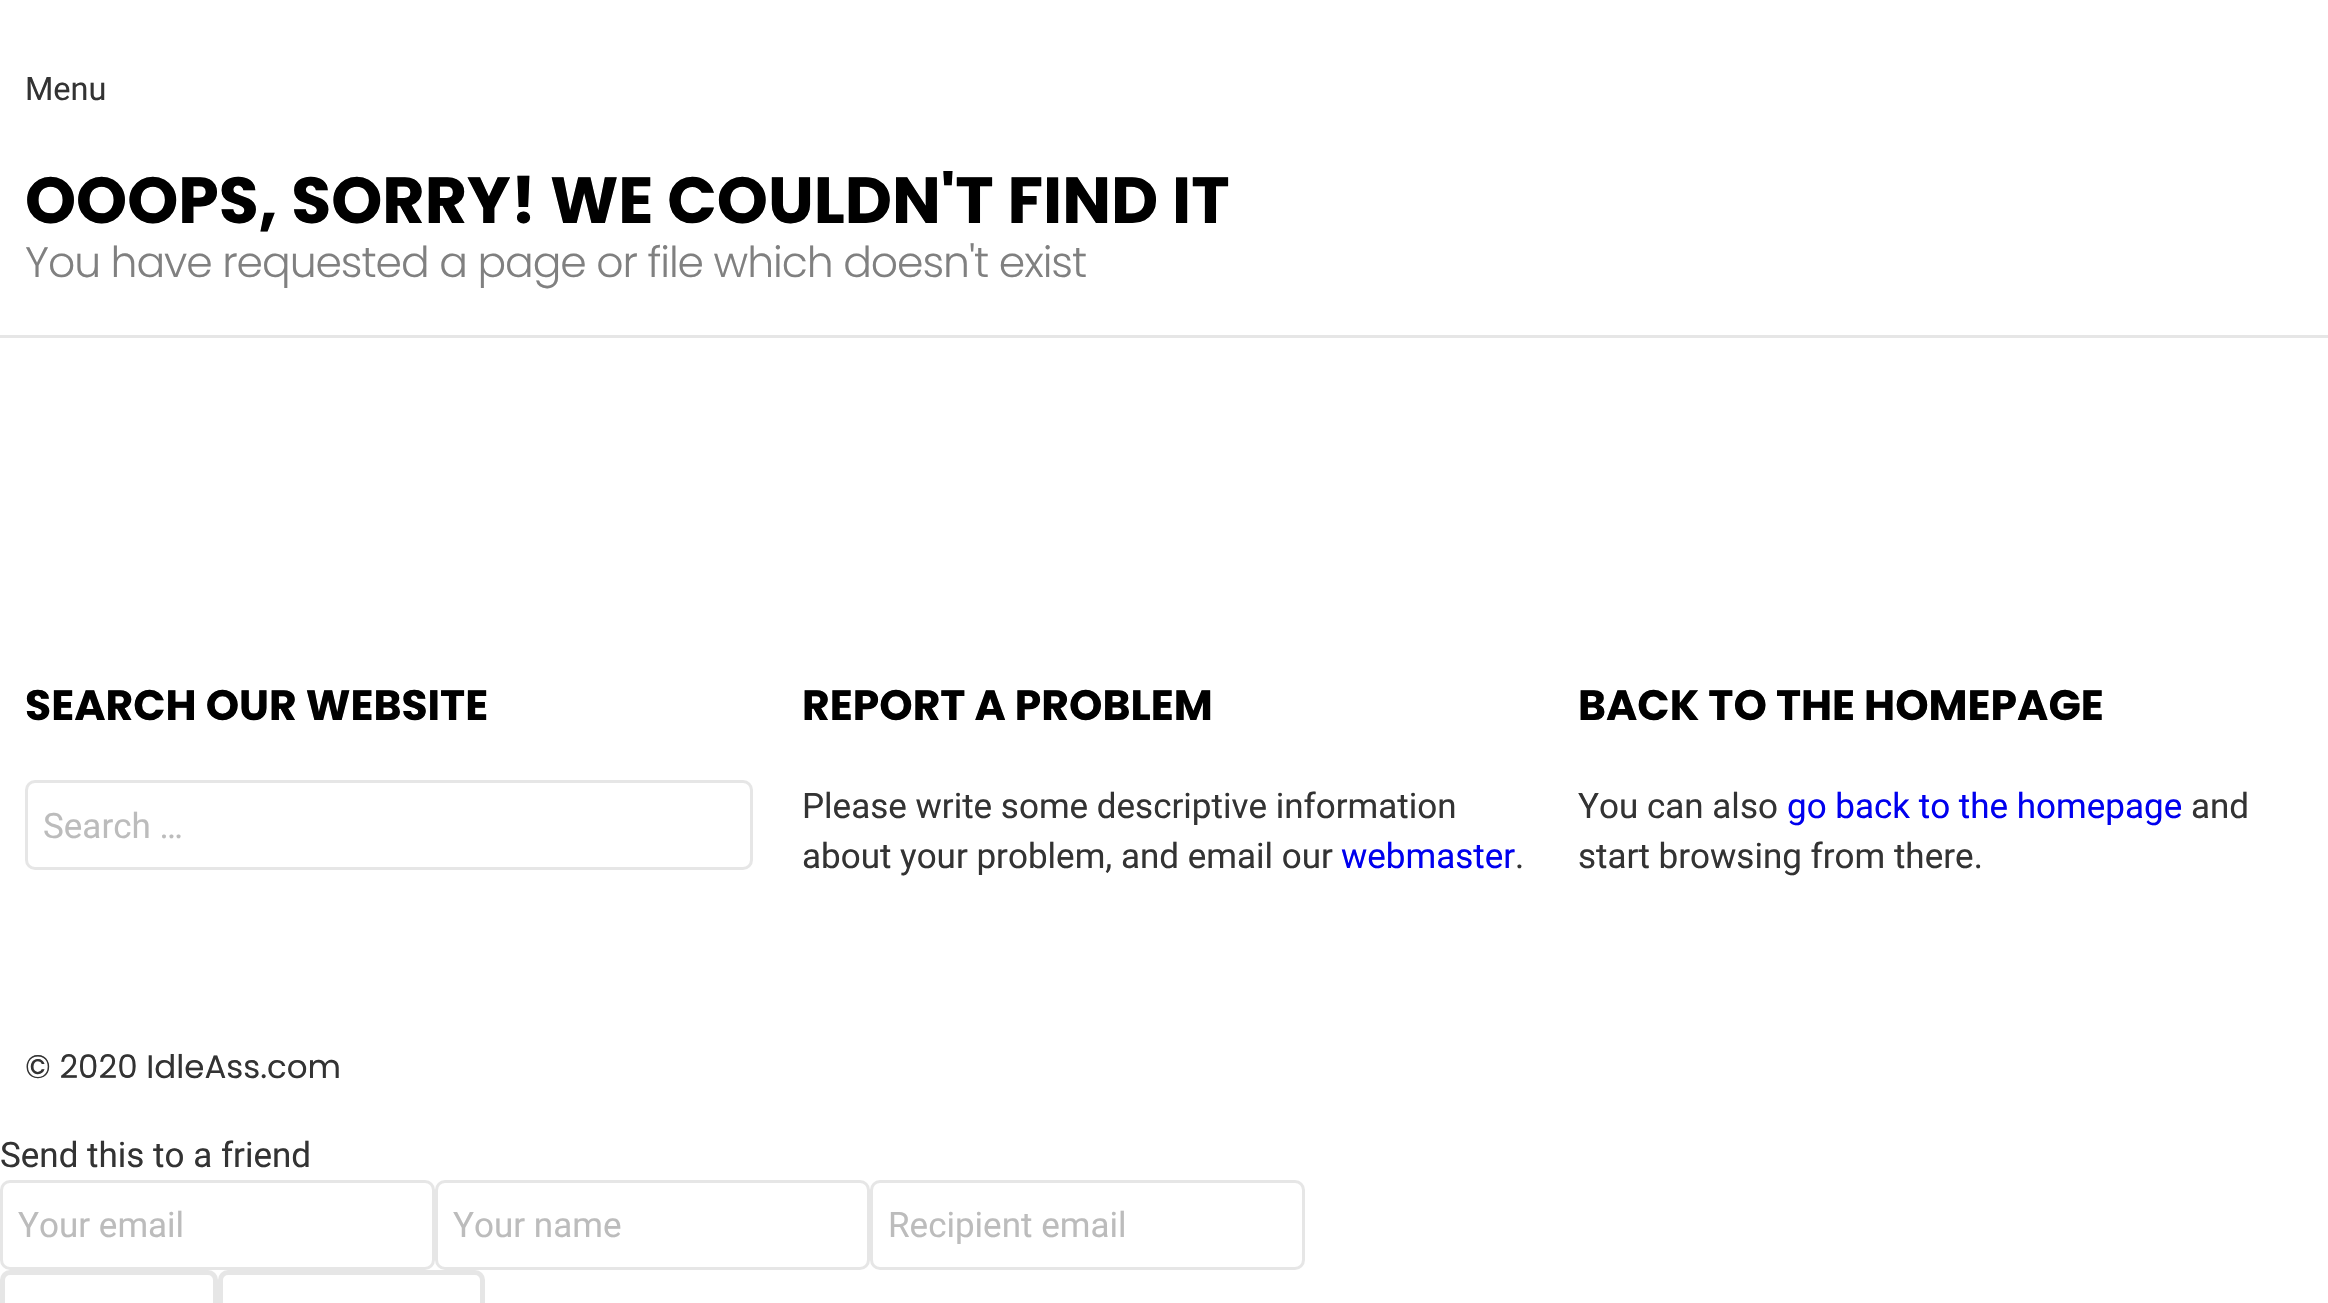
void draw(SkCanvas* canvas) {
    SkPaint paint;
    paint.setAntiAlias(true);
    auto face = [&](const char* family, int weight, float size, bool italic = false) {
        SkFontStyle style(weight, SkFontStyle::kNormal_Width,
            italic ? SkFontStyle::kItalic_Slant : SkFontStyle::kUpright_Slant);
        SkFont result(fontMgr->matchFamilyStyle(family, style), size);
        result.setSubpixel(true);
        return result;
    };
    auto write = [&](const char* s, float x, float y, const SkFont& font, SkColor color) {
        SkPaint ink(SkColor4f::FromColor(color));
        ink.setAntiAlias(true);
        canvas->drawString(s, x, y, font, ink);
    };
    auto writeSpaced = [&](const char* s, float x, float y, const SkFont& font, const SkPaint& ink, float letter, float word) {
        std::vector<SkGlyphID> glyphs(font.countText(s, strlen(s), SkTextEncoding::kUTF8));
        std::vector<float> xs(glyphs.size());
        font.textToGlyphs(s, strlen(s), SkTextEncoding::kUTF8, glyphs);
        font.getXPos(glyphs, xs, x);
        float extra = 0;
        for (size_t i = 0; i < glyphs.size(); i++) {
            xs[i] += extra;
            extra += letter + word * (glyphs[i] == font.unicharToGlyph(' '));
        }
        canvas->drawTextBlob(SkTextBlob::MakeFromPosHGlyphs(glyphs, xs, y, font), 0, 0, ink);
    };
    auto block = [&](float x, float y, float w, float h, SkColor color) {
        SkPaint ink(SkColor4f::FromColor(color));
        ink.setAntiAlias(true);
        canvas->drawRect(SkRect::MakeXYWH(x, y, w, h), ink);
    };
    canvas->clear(SK_ColorWHITE);
    auto kFont1 = face("Roboto", 400, 32.5f);
    write("Menu", 25, 100, kFont1, SkColorSetRGB(51, 51, 51));
    auto kFont2 = face("Poppins", 700, 65);
    write("OOOPS, SORRY! WE COULDN'T FIND IT", 25, 223, kFont2, SK_ColorBLACK);
    auto kFont3 = face("Poppins", 300, 42.5f);
    paint.setColor(SkColorSetRGB(128, 128, 128));
    writeSpaced("You have requested a page or file which doesn't exist", 25, 277, kFont3, paint, -1.05f, 0);
    block(0, 335, 2328, 3, SkColorSetRGB(230, 230, 230));
    auto kFont4 = face("Poppins", 700, 42.5f);
    write("SEARCH OUR WEBSITE", 25, 720, kFont4, SK_ColorBLACK);
    paint.setStyle(SkPaint::kStroke_Style);
    paint.setStrokeWidth(3);
    paint.setColor(SkColorSetRGB(230, 230, 230));
    canvas->drawRoundRect(SkRect::MakeXYWH(26.5f, 781.5f, 725, 87), 8.5f, 8.5f, paint);
    auto kFont5 = face("Roboto", 400, 35);
    write("Search …", 43, 838, kFont5, SkColorSetRGB(188, 188, 188));
    write("REPORT A PROBLEM", 802, 720, kFont4, SK_ColorBLACK);
    write("Please write some descriptive information", 802, 818, kFont5, SkColorSetRGB(51, 51, 51));
    write("about your problem, and email our", 802, 868, kFont5, SkColorSetRGB(51, 51, 51));
    write("webmaster", 1341, 868, kFont5, SkColorSetRGB(0, 0, 238));
    write(".", 1515, 868, kFont5, SkColorSetRGB(51, 51, 51));
    write("BACK TO THE HOMEPAGE", 1578, 720, kFont4, SK_ColorBLACK);
    write("You can also", 1578, 818, kFont5, SkColorSetRGB(51, 51, 51));
    write("go back to the homepage", 1787, 818, kFont5, SkColorSetRGB(0, 0, 238));
    write("and", 2191, 818, kFont5, SkColorSetRGB(51, 51, 51));
    write("start browsing from there.", 1578, 868, kFont5, SkColorSetRGB(51, 51, 51));
    auto kFont6 = face("Poppins", 400, 32.5f);
    write("© 2020 IdleAss.com", 25, 1078, kFont6, SkColorSetRGB(51, 51, 51));
    write("Send this to a friend", 0, 1167, kFont5, SkColorSetRGB(51, 51, 51));
    canvas->drawRoundRect(SkRect::MakeXYWH(1.5f, 1181.5f, 432, 87), 8.5f, 8.5f, paint);
    write("Your email", 18, 1237, kFont5, SkColorSetRGB(188, 188, 188));
    canvas->drawRoundRect(SkRect::MakeXYWH(436.5f, 1181.5f, 432, 87), 8.5f, 8.5f, paint);
    write("Your name", 453, 1237, kFont5, SkColorSetRGB(188, 188, 188));
    canvas->drawRoundRect(SkRect::MakeXYWH(871.5f, 1181.5f, 432, 87), 8.5f, 8.5f, paint);
    write("Recipient email", 888, 1237, kFont5, SkColorSetRGB(188, 188, 188));
    paint.setStrokeWidth(5);
    canvas->drawRoundRect(SkRect::MakeXYWH(2.5f, 1272.5f, 213, 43), 7.5f, 7.5f, paint);
    canvas->drawRoundRect(SkRect::MakeXYWH(220.5f, 1272.5f, 262, 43), 7.5f, 7.5f, paint);
}
